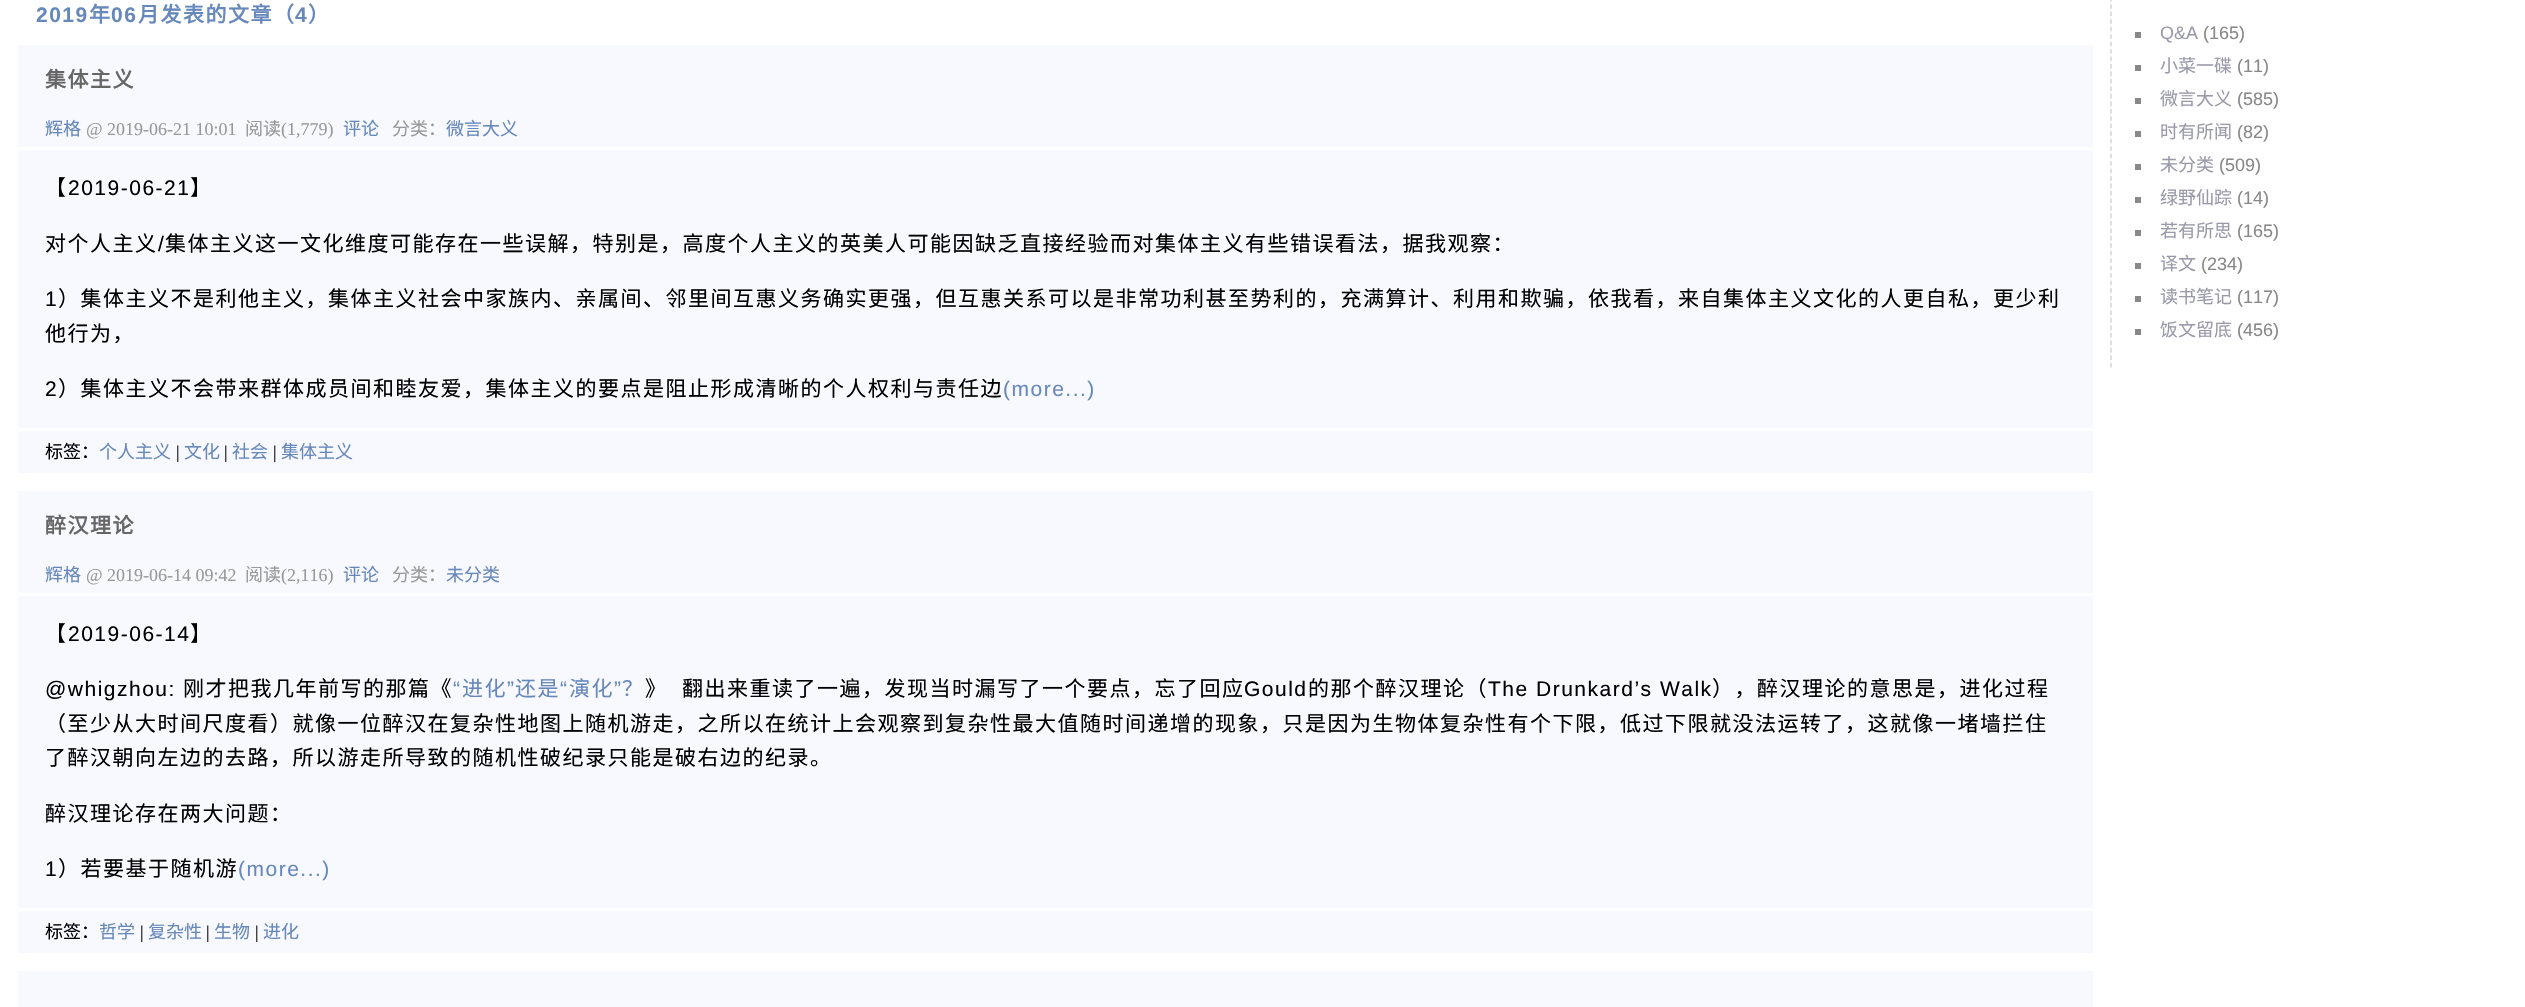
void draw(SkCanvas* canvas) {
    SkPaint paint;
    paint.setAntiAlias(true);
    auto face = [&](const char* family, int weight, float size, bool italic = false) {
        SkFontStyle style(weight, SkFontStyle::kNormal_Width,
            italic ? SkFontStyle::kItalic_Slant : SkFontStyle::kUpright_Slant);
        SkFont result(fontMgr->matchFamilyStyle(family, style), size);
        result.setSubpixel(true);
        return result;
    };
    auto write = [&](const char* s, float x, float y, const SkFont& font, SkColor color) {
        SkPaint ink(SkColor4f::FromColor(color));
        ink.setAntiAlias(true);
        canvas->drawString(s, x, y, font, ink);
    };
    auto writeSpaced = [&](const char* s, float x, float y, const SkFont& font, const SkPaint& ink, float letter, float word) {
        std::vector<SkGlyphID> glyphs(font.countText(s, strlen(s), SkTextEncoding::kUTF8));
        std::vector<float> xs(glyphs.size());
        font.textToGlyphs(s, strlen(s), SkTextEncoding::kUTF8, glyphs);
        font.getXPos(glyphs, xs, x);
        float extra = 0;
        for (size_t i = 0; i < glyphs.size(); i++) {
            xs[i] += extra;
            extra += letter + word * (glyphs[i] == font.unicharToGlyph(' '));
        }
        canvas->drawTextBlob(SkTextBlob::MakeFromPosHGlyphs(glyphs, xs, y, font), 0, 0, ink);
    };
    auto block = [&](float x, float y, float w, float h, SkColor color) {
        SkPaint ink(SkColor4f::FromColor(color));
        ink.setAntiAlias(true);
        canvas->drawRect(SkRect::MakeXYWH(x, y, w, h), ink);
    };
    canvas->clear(SK_ColorWHITE);
    auto kFont1 = face("Liberation Sans", 700, 21);
    paint.setColor(SkColorSetRGB(102, 136, 187));
    writeSpaced("2019", 36, 22, kFont1, paint, 1.5f, 0);
    auto kFont2 = face("Noto Sans CJK SC", 700, 21);
    writeSpaced("年", 89, 22, kFont2, paint, 1.5f, 0);
    writeSpaced("06", 111, 22, kFont1, paint, 1.5f, 0);
    writeSpaced("月发表的文章（", 138, 22, kFont2, paint, 1.5f, 0);
    writeSpaced("4", 295, 22, kFont1, paint, 1.5f, 0);
    writeSpaced("）", 308, 22, kFont2, paint, 1.5f, 0);
    block(18, 45, 2075, 102, SkColorSetRGB(248, 248, 255));
    paint.setColor(SkColorSetRGB(102, 102, 102));
    writeSpaced("集体主义", 45, 87, kFont2, paint, 1.5f, 0);
    auto kFont3 = face("Noto Sans CJK SC", 400, 18);
    write("辉格", 45, 135, kFont3, SkColorSetRGB(102, 136, 187));
    auto kFont4 = face("Liberation Serif", 400, 18);
    write("@ 2019-06-21 10:01", 86, 135, kFont4, SkColorSetRGB(153, 153, 153));
    write("阅读", 245, 135, kFont3, SkColorSetRGB(153, 153, 153));
    write("(1,779)", 281, 135, kFont4, SkColorSetRGB(153, 153, 153));
    write("评论", 343, 135, kFont3, SkColorSetRGB(102, 136, 187));
    write("分类：", 392, 135, kFont3, SkColorSetRGB(153, 153, 153));
    write("微言大义", 446, 135, kFont3, SkColorSetRGB(102, 136, 187));
    block(18, 150, 2075, 278, SkColorSetRGB(248, 248, 255));
    auto kFont5 = face("Noto Sans CJK SC", 400, 21);
    paint.setColor(SK_ColorBLACK);
    writeSpaced("【", 45, 195, kFont5, paint, 1.5f, 0);
    auto kFont6 = face("Liberation Sans", 400, 21);
    writeSpaced("2019-06-21", 68, 195, kFont6, paint, 1.5f, 0);
    writeSpaced("】", 190, 195, kFont5, paint, 1.5f, 0);
    writeSpaced("对个人主义", 45, 251, kFont5, paint, 1.5f, 0);
    writeSpaced("/", 158, 251, kFont6, paint, 1.5f, 0);
    writeSpaced("集体主义这一文化维度可能存在一些误解，特别是，高度个人主义的英美人可能因缺乏直接经验而对集体主义有些错误看法，据我观察：", 165, 251, kFont5, paint, 1.5f, 0);
    writeSpaced("1", 45, 306, kFont6, paint, 1.5f, 0);
    writeSpaced("）集体主义不是利他主义，集体主义社会中家族内、亲属间、邻里间互惠义务确实更强，但互惠关系可以是非常功利甚至势利的，充满算计、利用和欺骗，依我看，来自集体主义文化的人更自私，更少利", 58, 306, kFont5, paint, 1.5f, 0);
    writeSpaced("他行为，", 45, 341, kFont5, paint, 1.5f, 0);
    writeSpaced("2", 45, 396, kFont6, paint, 1.5f, 0);
    writeSpaced("）集体主义不会带来群体成员间和睦友爱，集体主义的要点是阻止形成清晰的个人权利与责任边", 58, 396, kFont5, paint, 1.5f, 0);
    paint.setColor(SkColorSetRGB(102, 136, 187));
    writeSpaced("(more...)", 1003, 396, kFont6, paint, 1.5f, 0);
    block(18, 431, 2075, 42, SkColorSetRGB(248, 248, 255));
    write("标签：", 45, 458, kFont3, SK_ColorBLACK);
    write("个人主义", 99, 458, kFont3, SkColorSetRGB(102, 136, 187));
    write("|", 176, 458, kFont4, SK_ColorBLACK);
    write("文化", 184, 458, kFont3, SkColorSetRGB(102, 136, 187));
    write("|", 224, 458, kFont4, SK_ColorBLACK);
    write("社会", 232, 458, kFont3, SkColorSetRGB(102, 136, 187));
    write("|", 273, 458, kFont4, SK_ColorBLACK);
    write("集体主义", 281, 458, kFont3, SkColorSetRGB(102, 136, 187));
    block(18, 491, 2075, 102, SkColorSetRGB(248, 248, 255));
    paint.setColor(SkColorSetRGB(102, 102, 102));
    writeSpaced("醉汉理论", 45, 533, kFont2, paint, 1.5f, 0);
    write("辉格", 45, 581, kFont3, SkColorSetRGB(102, 136, 187));
    write("@ 2019-06-14 09:42", 86, 581, kFont4, SkColorSetRGB(153, 153, 153));
    write("阅读", 245, 581, kFont3, SkColorSetRGB(153, 153, 153));
    write("(2,116)", 281, 581, kFont4, SkColorSetRGB(153, 153, 153));
    write("评论", 343, 581, kFont3, SkColorSetRGB(102, 136, 187));
    write("分类：", 392, 581, kFont3, SkColorSetRGB(153, 153, 153));
    write("未分类", 446, 581, kFont3, SkColorSetRGB(102, 136, 187));
    block(18, 596, 2075, 312, SkColorSetRGB(248, 248, 255));
    paint.setColor(SK_ColorBLACK);
    writeSpaced("【", 45, 641, kFont5, paint, 1.5f, 0);
    writeSpaced("2019-06-14", 68, 641, kFont6, paint, 1.5f, 0);
    writeSpaced("】", 190, 641, kFont5, paint, 1.5f, 0);
    writeSpaced("@whigzhou:", 45, 696, kFont6, paint, 1.5f, 0);
    writeSpaced("刚才把我几年前写的那篇《", 183, 696, kFont5, paint, 1.5f, 0);
    paint.setColor(SkColorSetRGB(102, 136, 187));
    writeSpaced("“", 453, 696, kFont6, paint, 1.5f, 0);
    writeSpaced("进化", 462, 696, kFont5, paint, 1.5f, 0);
    writeSpaced("”", 507, 696, kFont6, paint, 1.5f, 0);
    writeSpaced("还是", 515, 696, kFont5, paint, 1.5f, 0);
    writeSpaced("“", 560, 696, kFont6, paint, 1.5f, 0);
    writeSpaced("演化", 569, 696, kFont5, paint, 1.5f, 0);
    writeSpaced("”", 614, 696, kFont6, paint, 1.5f, 0);
    writeSpaced("？", 622, 696, kFont5, paint, 1.5f, 0);
    paint.setColor(SK_ColorBLACK);
    writeSpaced("》", 645, 696, kFont5, paint, 1.5f, 0);
    writeSpaced("翻出来重读了一遍，发现当时漏写了一个要点，忘了回应", 682, 696, kFont5, paint, 1.5f, 0);
    writeSpaced("Gould", 1244, 696, kFont6, paint, 1.5f, 0);
    writeSpaced("的那个醉汉理论（", 1308, 696, kFont5, paint, 1.5f, 0);
    writeSpaced("The Drunkard’s Walk", 1488, 696, kFont6, paint, 1.5f, 0);
    writeSpaced("），醉汉理论的意思是，进化过程", 1712, 696, kFont5, paint, 1.5f, 0);
    writeSpaced("（至少从大时间尺度看）就像一位醉汉在复杂性地图上随机游走，之所以在统计上会观察到复杂性最大值随时间递增的现象，只是因为生物体复杂性有个下限，低过下限就没法运转了，这就像一堵墙拦住", 45, 731, kFont5, paint, 1.5f, 0);
    writeSpaced("了醉汉朝向左边的去路，所以游走所导致的随机性破纪录只能是破右边的纪录。", 45, 765, kFont5, paint, 1.5f, 0);
    writeSpaced("醉汉理论存在两大问题：", 45, 821, kFont5, paint, 1.5f, 0);
    writeSpaced("1", 45, 876, kFont6, paint, 1.5f, 0);
    writeSpaced("）若要基于随机游", 58, 876, kFont5, paint, 1.5f, 0);
    paint.setColor(SkColorSetRGB(102, 136, 187));
    writeSpaced("(more...)", 238, 876, kFont6, paint, 1.5f, 0);
    block(18, 911, 2075, 42, SkColorSetRGB(248, 248, 255));
    write("标签：", 45, 938, kFont3, SK_ColorBLACK);
    write("哲学", 99, 938, kFont3, SkColorSetRGB(102, 136, 187));
    write("|", 140, 938, kFont4, SK_ColorBLACK);
    write("复杂性", 148, 938, kFont3, SkColorSetRGB(102, 136, 187));
    write("|", 206, 938, kFont4, SK_ColorBLACK);
    write("生物", 214, 938, kFont3, SkColorSetRGB(102, 136, 187));
    write("|", 255, 938, kFont4, SK_ColorBLACK);
    write("进化", 263, 938, kFont3, SkColorSetRGB(102, 136, 187));
    block(18, 971, 2075, 36, SkColorSetRGB(248, 248, 255));
    paint.setStyle(SkPaint::kStroke_Style);
    paint.setStrokeWidth(1.5f);
    paint.setColor(SkColorSetRGB(211, 211, 211));
    paint.setPathEffect(SkDashPathEffect::Make({{4.5f, 2.97f}}, 0));
    canvas->drawPath(SkPathBuilder().moveTo(2111, -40.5f).lineTo(2111, 367.5f).detach(), paint);
    paint.setPathEffect(nullptr);
    block(2135, 32, 6, 6, SkColorSetRGB(136, 136, 136));
    auto kFont7 = face("Liberation Sans", 400, 18);
    write("Q&A", 2160, 39, kFont7, SkColorSetRGB(153, 153, 170));
    write("(165)", 2203, 39, kFont7, SkColorSetRGB(136, 136, 136));
    block(2135, 65, 6, 6, SkColorSetRGB(136, 136, 136));
    write("小菜一碟", 2160, 72, kFont3, SkColorSetRGB(153, 153, 170));
    write("(11)", 2237, 72, kFont7, SkColorSetRGB(136, 136, 136));
    block(2135, 98, 6, 6, SkColorSetRGB(136, 136, 136));
    write("微言大义", 2160, 105, kFont3, SkColorSetRGB(153, 153, 170));
    write("(585)", 2237, 105, kFont7, SkColorSetRGB(136, 136, 136));
    block(2135, 131, 6, 6, SkColorSetRGB(136, 136, 136));
    write("时有所闻", 2160, 138, kFont3, SkColorSetRGB(153, 153, 170));
    write("(82)", 2237, 138, kFont7, SkColorSetRGB(136, 136, 136));
    block(2135, 164, 6, 6, SkColorSetRGB(136, 136, 136));
    write("未分类", 2160, 171, kFont3, SkColorSetRGB(153, 153, 170));
    write("(509)", 2219, 171, kFont7, SkColorSetRGB(136, 136, 136));
    block(2135, 197, 6, 6, SkColorSetRGB(136, 136, 136));
    write("绿野仙踪", 2160, 204, kFont3, SkColorSetRGB(153, 153, 170));
    write("(14)", 2237, 204, kFont7, SkColorSetRGB(136, 136, 136));
    block(2135, 230, 6, 6, SkColorSetRGB(136, 136, 136));
    write("若有所思", 2160, 237, kFont3, SkColorSetRGB(153, 153, 170));
    write("(165)", 2237, 237, kFont7, SkColorSetRGB(136, 136, 136));
    block(2135, 263, 6, 6, SkColorSetRGB(136, 136, 136));
    write("译文", 2160, 270, kFont3, SkColorSetRGB(153, 153, 170));
    write("(234)", 2201, 270, kFont7, SkColorSetRGB(136, 136, 136));
    block(2135, 296, 6, 6, SkColorSetRGB(136, 136, 136));
    write("读书笔记", 2160, 303, kFont3, SkColorSetRGB(153, 153, 170));
    write("(117)", 2237, 303, kFont7, SkColorSetRGB(136, 136, 136));
    block(2135, 329, 6, 6, SkColorSetRGB(136, 136, 136));
    write("饭文留底", 2160, 336, kFont3, SkColorSetRGB(153, 153, 170));
    write("(456)", 2237, 336, kFont7, SkColorSetRGB(136, 136, 136));
}
